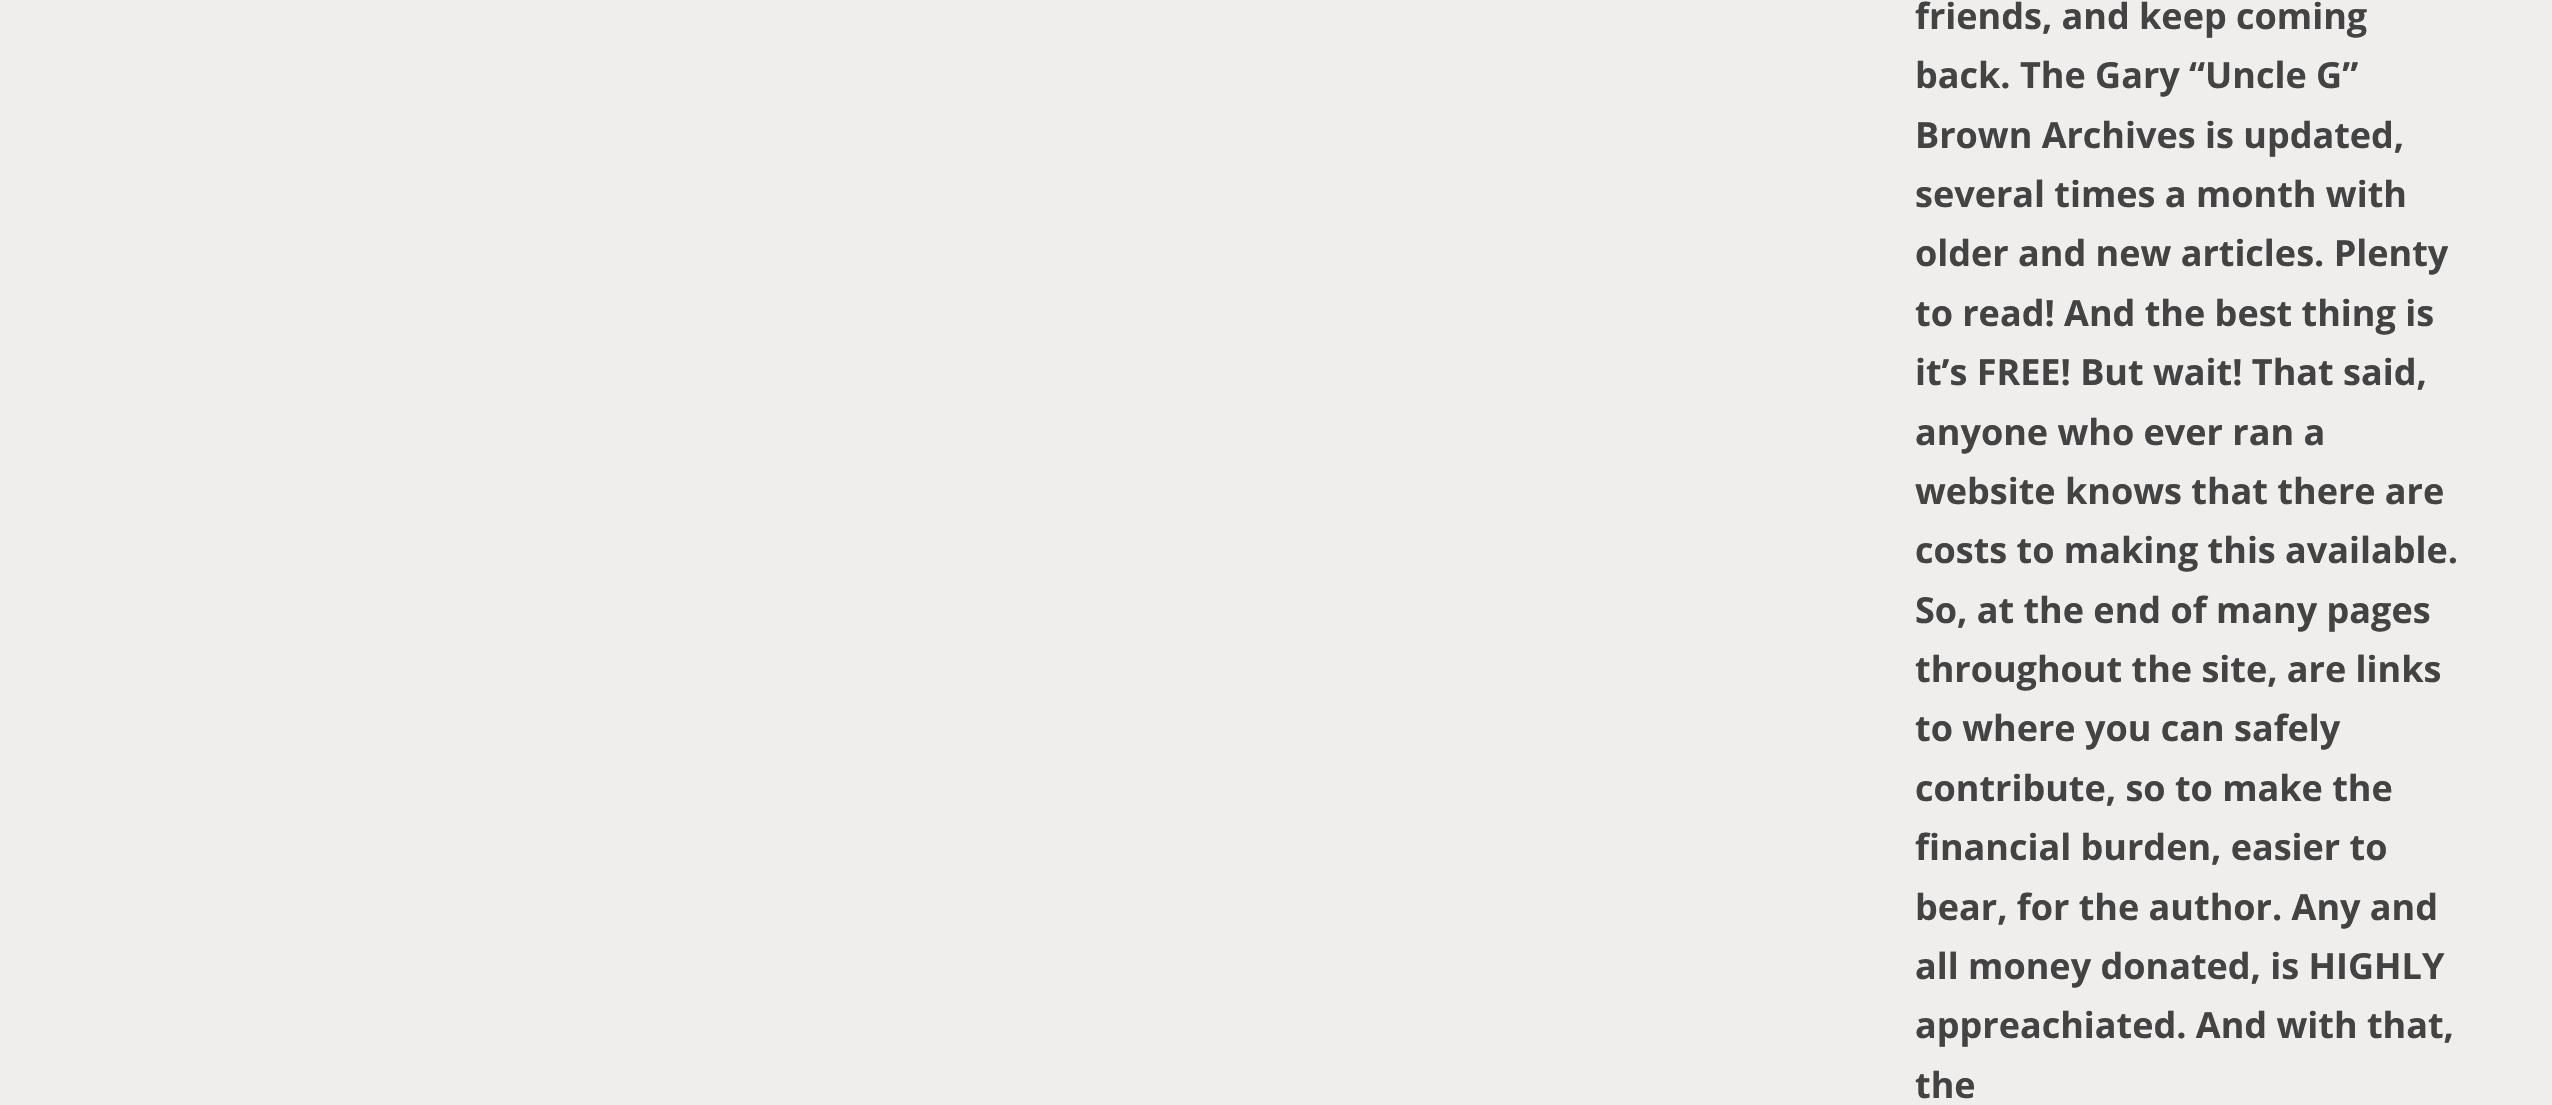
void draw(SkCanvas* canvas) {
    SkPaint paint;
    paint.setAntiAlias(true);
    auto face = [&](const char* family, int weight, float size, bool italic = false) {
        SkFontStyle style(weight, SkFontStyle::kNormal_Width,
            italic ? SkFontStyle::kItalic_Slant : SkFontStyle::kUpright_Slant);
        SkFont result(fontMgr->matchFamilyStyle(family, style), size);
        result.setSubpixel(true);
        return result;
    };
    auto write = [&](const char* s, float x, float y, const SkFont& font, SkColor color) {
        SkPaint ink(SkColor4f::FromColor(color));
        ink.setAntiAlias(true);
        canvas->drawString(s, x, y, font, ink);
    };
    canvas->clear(SkColorSetRGB(240, 238, 236));
    auto kFont1 = face("Open Sans", 700, 36);
    write("friends, and keep coming", 1915, 29, kFont1, SkColorSetRGB(67, 67, 67));
    write("back. The Gary “Uncle G”", 1915, 88, kFont1, SkColorSetRGB(67, 67, 67));
    write("Brown Archives is updated,", 1915, 148, kFont1, SkColorSetRGB(67, 67, 67));
    write("several times a month with", 1915, 207, kFont1, SkColorSetRGB(67, 67, 67));
    write("older and new articles. Plenty", 1915, 266, kFont1, SkColorSetRGB(67, 67, 67));
    write("to read! And the best thing is", 1915, 326, kFont1, SkColorSetRGB(67, 67, 67));
    write("it’s FREE! But wait! That said,", 1915, 385, kFont1, SkColorSetRGB(67, 67, 67));
    write("anyone who ever ran a", 1915, 445, kFont1, SkColorSetRGB(67, 67, 67));
    write("website knows that there are", 1915, 504, kFont1, SkColorSetRGB(67, 67, 67));
    write("costs to making this available.", 1915, 563, kFont1, SkColorSetRGB(67, 67, 67));
    write("So, at the end of many pages", 1915, 623, kFont1, SkColorSetRGB(67, 67, 67));
    write("throughout the site, are links", 1915, 682, kFont1, SkColorSetRGB(67, 67, 67));
    write("to where you can safely", 1915, 741, kFont1, SkColorSetRGB(67, 67, 67));
    write("contribute, so to make the", 1915, 801, kFont1, SkColorSetRGB(67, 67, 67));
    write("financial burden, easier to", 1915, 860, kFont1, SkColorSetRGB(67, 67, 67));
    write("bear, for the author. Any and", 1915, 920, kFont1, SkColorSetRGB(67, 67, 67));
    write("all money donated, is HIGHLY", 1915, 979, kFont1, SkColorSetRGB(67, 67, 67));
    write("appreachiated. And with that,", 1915, 1038, kFont1, SkColorSetRGB(67, 67, 67));
    write("the", 1915, 1098, kFont1, SkColorSetRGB(67, 67, 67));
}
